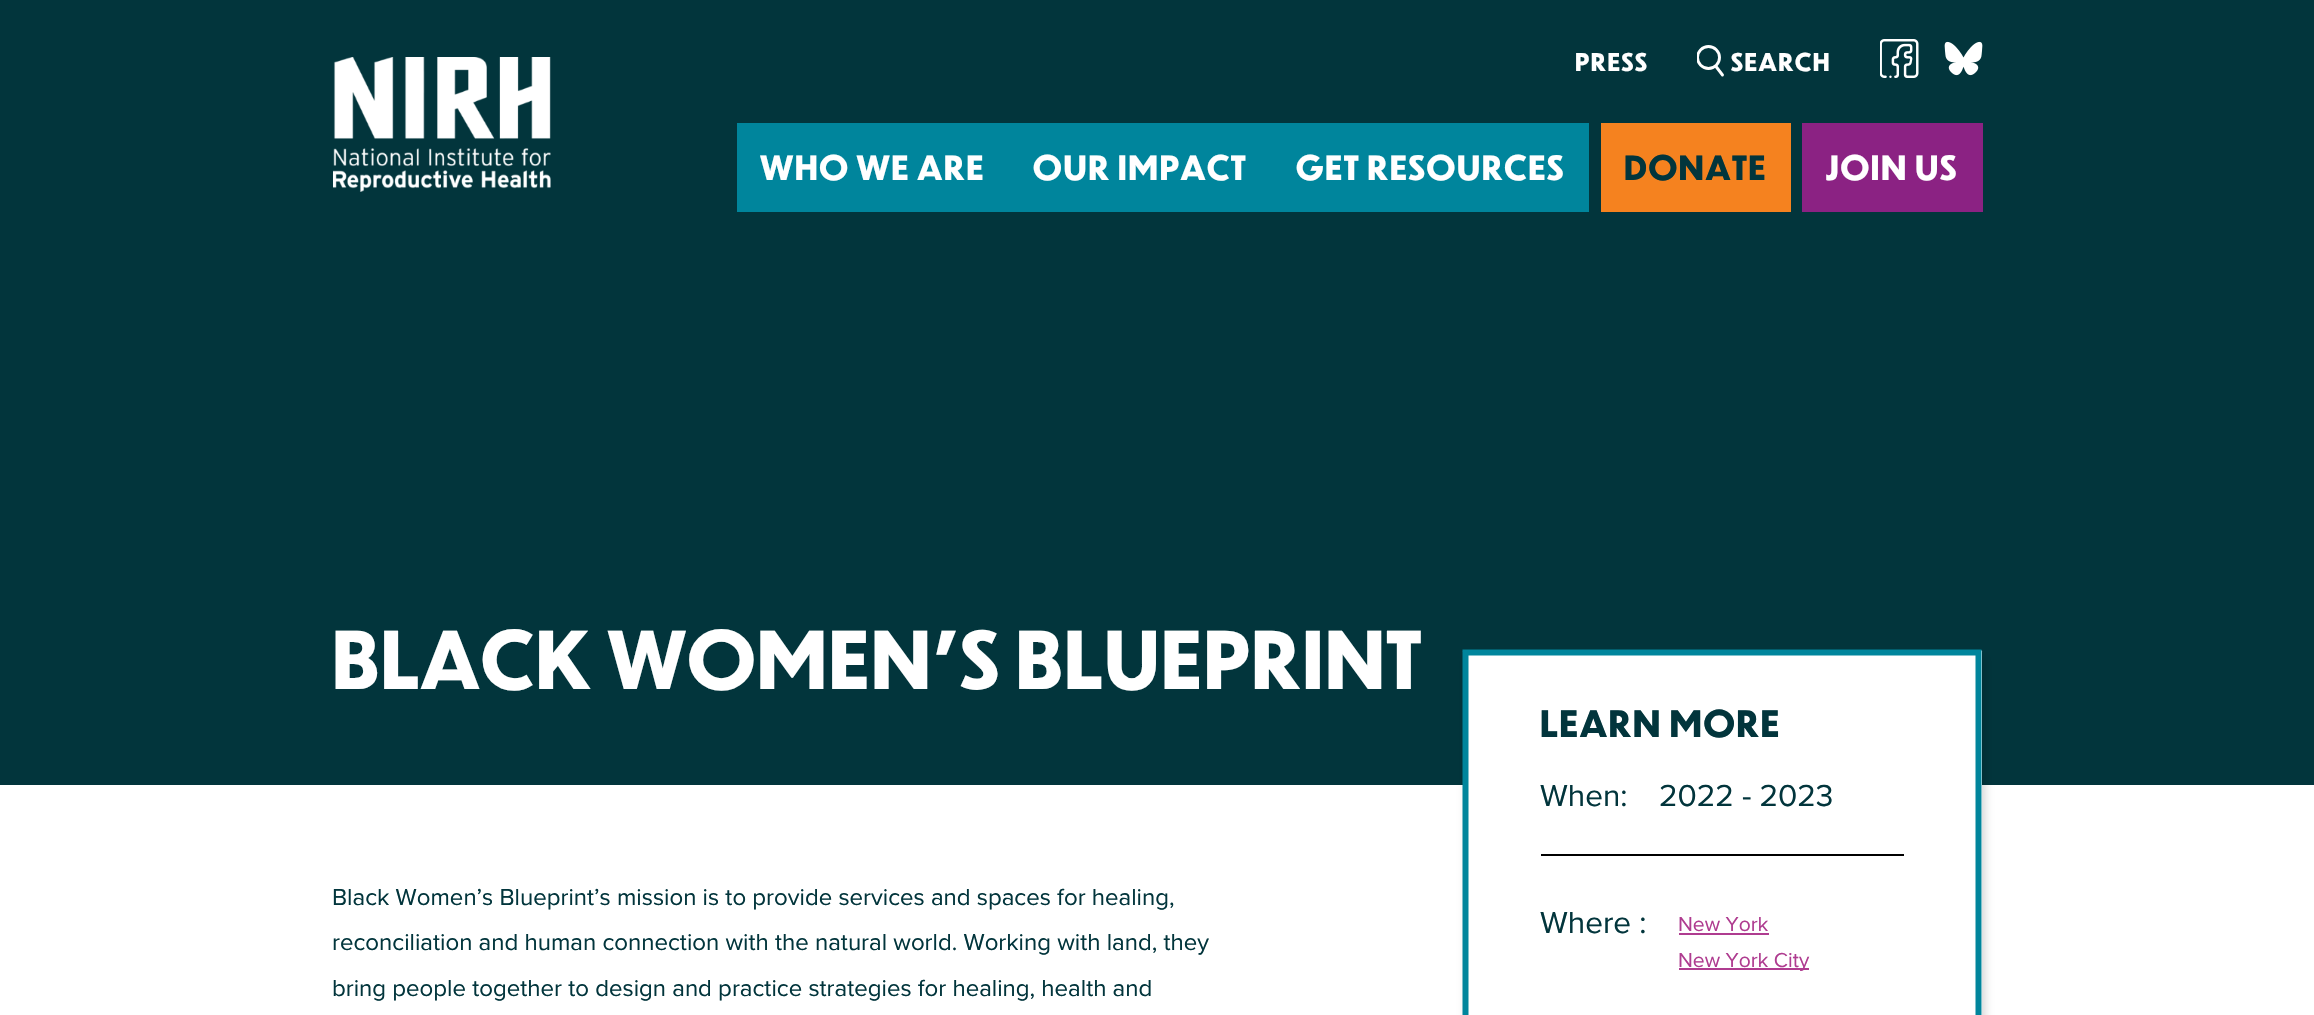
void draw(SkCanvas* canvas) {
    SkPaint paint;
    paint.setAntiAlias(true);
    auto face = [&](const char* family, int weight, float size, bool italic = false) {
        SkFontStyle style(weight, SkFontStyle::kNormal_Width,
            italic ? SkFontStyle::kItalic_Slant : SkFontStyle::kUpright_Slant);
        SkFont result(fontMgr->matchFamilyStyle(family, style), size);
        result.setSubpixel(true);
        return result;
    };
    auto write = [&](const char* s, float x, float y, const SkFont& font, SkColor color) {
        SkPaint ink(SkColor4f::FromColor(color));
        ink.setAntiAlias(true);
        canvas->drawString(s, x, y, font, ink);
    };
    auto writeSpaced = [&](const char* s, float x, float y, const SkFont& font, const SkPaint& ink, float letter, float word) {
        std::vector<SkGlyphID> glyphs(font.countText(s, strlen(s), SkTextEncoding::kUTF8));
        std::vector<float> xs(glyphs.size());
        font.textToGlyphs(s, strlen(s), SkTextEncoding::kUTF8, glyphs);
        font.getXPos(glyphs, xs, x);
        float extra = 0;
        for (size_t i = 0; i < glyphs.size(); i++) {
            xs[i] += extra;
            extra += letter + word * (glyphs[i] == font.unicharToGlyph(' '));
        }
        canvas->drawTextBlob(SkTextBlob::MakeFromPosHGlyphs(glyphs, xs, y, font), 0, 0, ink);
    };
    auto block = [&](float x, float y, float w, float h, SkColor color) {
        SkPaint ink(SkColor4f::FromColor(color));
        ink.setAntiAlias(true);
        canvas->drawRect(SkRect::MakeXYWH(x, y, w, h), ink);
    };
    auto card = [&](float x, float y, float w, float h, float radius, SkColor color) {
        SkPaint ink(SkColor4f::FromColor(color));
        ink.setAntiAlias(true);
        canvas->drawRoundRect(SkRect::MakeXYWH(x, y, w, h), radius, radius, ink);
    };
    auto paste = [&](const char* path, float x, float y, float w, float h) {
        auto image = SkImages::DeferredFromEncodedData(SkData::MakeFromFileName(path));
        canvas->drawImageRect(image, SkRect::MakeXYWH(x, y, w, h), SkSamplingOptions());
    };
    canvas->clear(SK_ColorWHITE);
    block(0, 0, 2314, 785, SkColorSetRGB(2, 53, 60));
    paste("pic1.png", 333, 57, 218, 135);
    auto kFont1 = face("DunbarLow", 700, 24);
    paint.setColor(SK_ColorWHITE);
    writeSpaced("PRESS", 1575, 71, kFont1, paint, 1.5f, 0);
    paint.setStyle(SkPaint::kStroke_Style);
    paint.setStrokeWidth(2.9f);
    paint.setStrokeCap(SkPaint::kRound_Cap);
    canvas->drawPath(SkPathBuilder().moveTo(1722.5f, 75).lineTo(1716, 66.5f).detach(), paint);
    canvas->save();
    canvas->clipRect(SkRect::MakeXYWH(1697, 45, 28, 33));
    paint.setStrokeCap(SkPaint::kButt_Cap);
    canvas->drawCircle(1708.5f, 57.5f, 11, paint);
    canvas->restore();
    paint.setStyle(SkPaint::kFill_Style);
    writeSpaced("SEARCH", 1731, 71, kFont1, paint, 1.5f, 0);
    paste("pic2.png", 1880, 39, 39, 39);
    paste("pic3.png", 1944, 41, 39, 35);
    block(737, 123, 535, 89, SkColorSetRGB(0, 133, 156));
    auto kFont2 = face("DunbarLow", 700, 33);
    writeSpaced("WHO WE ARE", 760, 180, kFont2, paint, 1.5f, 0);
    writeSpaced("OUR IMPACT", 1033, 180, kFont2, paint, 1.5f, 0);
    block(1272, 123, 317, 89, SkColorSetRGB(0, 133, 156));
    writeSpaced("GET RESOURCES", 1296, 180, kFont2, paint, 1.5f, 0);
    block(1601, 123, 190, 89, SkColorSetRGB(245, 130, 31));
    paint.setColor(SkColorSetRGB(2, 53, 60));
    writeSpaced("DONATE", 1624, 180, kFont2, paint, 1.5f, 0);
    block(1802, 123, 181, 89, SkColorSetRGB(139, 34, 131));
    paint.setColor(SK_ColorWHITE);
    writeSpaced("JOIN US", 1826, 180, kFont2, paint, 1.5f, 0);
    auto kFont3 = face("DunbarLow", 700, 78);
    writeSpaced("BLACK WOMEN’S BLUEPRINT", 332, 689, kFont3, paint, 1.5f, 0);
    auto kFont4 = face("Proxima Nova", 400, 24);
    write("Black Women’s Blueprint’s mission is to provide services and spaces for healing,", 332, 905, kFont4, SkColorSetRGB(2, 53, 60));
    write("reconciliation and human connection with the natural world. Working with land, they", 332, 950, kFont4, SkColorSetRGB(2, 53, 60));
    write("bring people together to design and practice strategies for healing, health and", 332, 996, kFont4, SkColorSetRGB(2, 53, 60));
    paint.setColor(SkColorSetARGB(41, 0, 0, 0));
    paint.setMaskFilter(SkMaskFilter::MakeBlur(kNormal_SkBlurStyle, 4.5f));
    canvas->drawRoundRect(SkRect::MakeXYWH(1466, 657, 519, 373), 1.5f, 1.5f, paint);
    paint.setMaskFilter(nullptr);
    card(1463, 650, 519, 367, 1.5f, SK_ColorWHITE);
    paint.setStyle(SkPaint::kStroke_Style);
    paint.setStrokeWidth(6);
    paint.setColor(SkColorSetRGB(0, 133, 156));
    canvas->drawPath(SkPathBuilder().moveTo(1465.5f, 652.5f).lineTo(1978.5f, 652.5f).lineTo(1978.5f, 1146).lineTo(1465.5f, 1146).close().detach(), paint);
    auto kFont5 = face("DunbarLow", 700, 36);
    paint.setStyle(SkPaint::kFill_Style);
    paint.setColor(SkColorSetRGB(2, 53, 60));
    writeSpaced("LEARN MORE", 1540, 737, kFont5, paint, 1.5f, 0);
    block(1541, 854, 363, 2, SK_ColorBLACK);
    auto kFont6 = face("Proxima Nova", 400, 31.5f);
    write("When:", 1540, 806, kFont6, SkColorSetRGB(2, 53, 60));
    write("2022 - 2023", 1659, 806, kFont6, SkColorSetRGB(2, 53, 60));
    write("Where :", 1540, 933, kFont6, SkColorSetRGB(2, 53, 60));
    auto kFont7 = face("Proxima Nova", 400, 21);
    write("New York", 1678, 931, kFont7, SkColorSetRGB(175, 60, 144));
    block(1679, 933, 90, 2, SkColorSetRGB(175, 60, 144));
    block(1679, 968, 130, 2, SkColorSetRGB(175, 60, 144));
    write("New York City", 1678, 967, kFont7, SkColorSetRGB(175, 60, 144));
}
